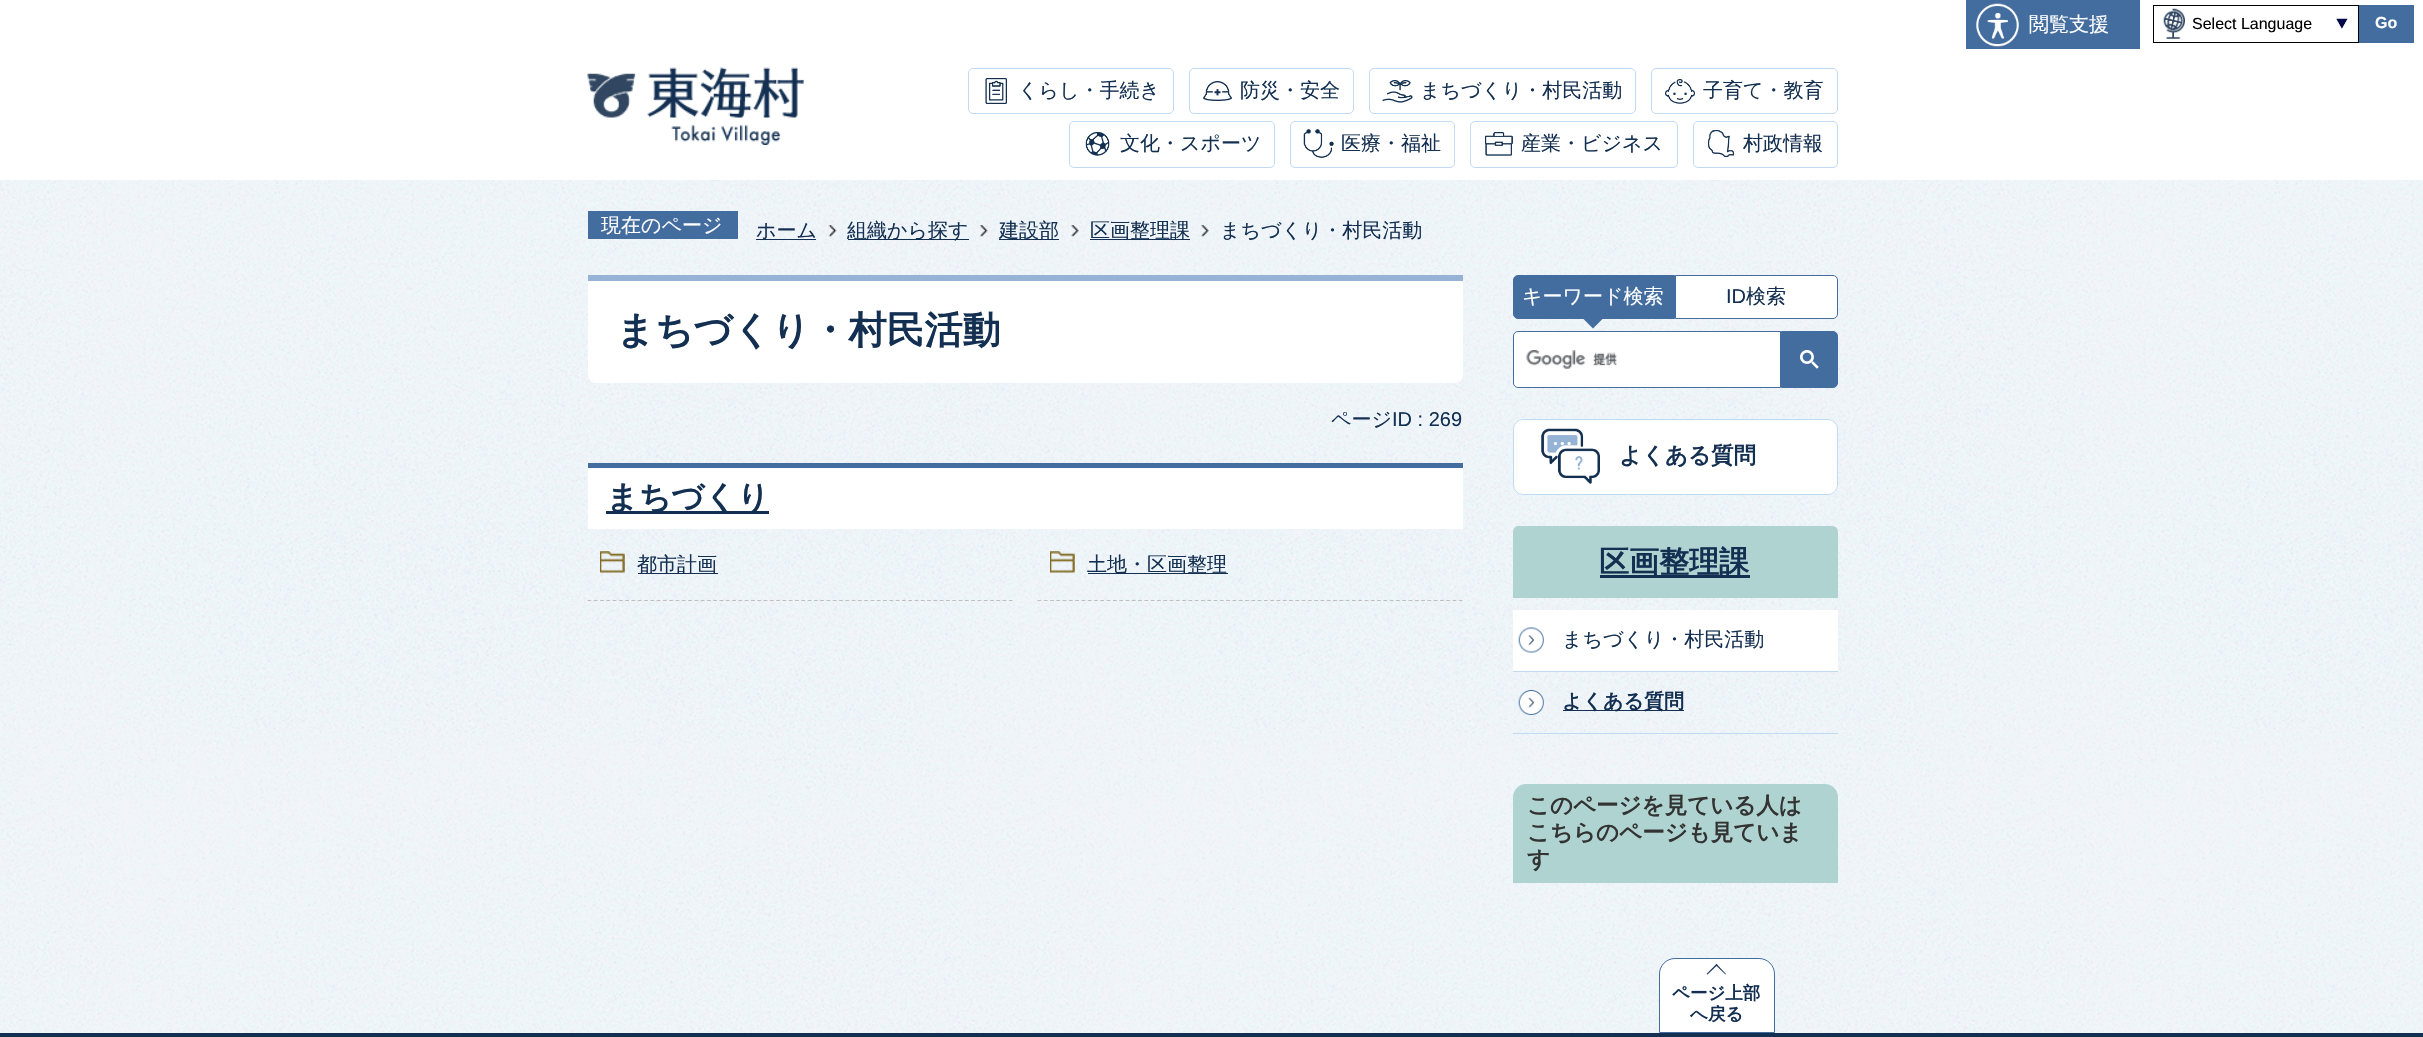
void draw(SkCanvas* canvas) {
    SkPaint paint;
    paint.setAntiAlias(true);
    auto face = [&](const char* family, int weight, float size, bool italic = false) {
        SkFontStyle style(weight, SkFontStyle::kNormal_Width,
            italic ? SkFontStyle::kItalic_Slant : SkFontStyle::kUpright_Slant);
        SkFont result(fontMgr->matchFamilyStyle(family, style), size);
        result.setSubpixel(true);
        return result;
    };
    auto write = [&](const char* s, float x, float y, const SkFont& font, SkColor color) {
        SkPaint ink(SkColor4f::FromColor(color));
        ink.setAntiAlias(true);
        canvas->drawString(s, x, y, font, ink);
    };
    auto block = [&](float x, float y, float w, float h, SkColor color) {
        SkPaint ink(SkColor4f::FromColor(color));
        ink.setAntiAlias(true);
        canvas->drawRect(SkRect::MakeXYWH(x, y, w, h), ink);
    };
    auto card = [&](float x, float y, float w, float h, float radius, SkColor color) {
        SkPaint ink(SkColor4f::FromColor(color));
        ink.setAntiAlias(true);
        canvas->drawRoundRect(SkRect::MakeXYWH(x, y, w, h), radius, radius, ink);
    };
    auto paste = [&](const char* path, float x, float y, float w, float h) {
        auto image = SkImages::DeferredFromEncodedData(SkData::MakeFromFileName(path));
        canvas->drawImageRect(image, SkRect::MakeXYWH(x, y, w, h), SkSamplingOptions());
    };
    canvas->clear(SK_ColorWHITE);
    paste("pic1.png", 0, 180, 2423, 853);
    block(1966, 0, 174, 49, SkColorSetRGB(68, 109, 159));
    paste("pic2.png", 1976, 3, 43, 44);
    auto kFont1 = face("WenQuanYi Zen Hei", 500, 20);
    write("閲覧支援", 2029, 31, kFont1, SK_ColorWHITE);
    paste("pic3.png", 2163, 8, 185, 31);
    paint.setStyle(SkPaint::kStroke_Style);
    paint.setStrokeWidth(1);
    paint.setColor(SK_ColorBLACK);
    canvas->drawRect(SkRect::MakeXYWH(2153.5f, 5.5f, 205, 37), paint);
    auto kFont2 = face("Liberation Sans", 400, 16);
    write("Select Language", 2192, 29, kFont2, SK_ColorBLACK);
    block(2359, 5, 55, 38, SkColorSetRGB(68, 109, 159));
    auto kFont3 = face("Liberation Sans", 700, 16);
    write("Go", 2375, 28, kFont3, SK_ColorWHITE);
    paste("pic4.png", 587, 67, 217, 78);
    paste("pic5.png", 985, 78, 22, 26);
    paint.setColor(SkColorSetRGB(191, 218, 242));
    canvas->drawRoundRect(SkRect::MakeXYWH(968.5f, 68.5f, 205, 45), 4.5f, 4.5f, paint);
    write("くらし・手続き", 1018, 97, kFont1, SkColorSetRGB(19, 47, 81));
    paste("pic6.png", 1203, 81, 29, 20);
    canvas->drawRoundRect(SkRect::MakeXYWH(1189.5f, 68.5f, 164, 45), 4.5f, 4.5f, paint);
    write("防災・安全", 1240, 97, kFont1, SkColorSetRGB(19, 47, 81));
    paste("pic7.png", 1382, 80, 31, 23);
    canvas->drawRoundRect(SkRect::MakeXYWH(1369.5f, 68.5f, 266, 45), 4.5f, 4.5f, paint);
    write("まちづくり・村民活動", 1420, 97, kFont1, SkColorSetRGB(19, 47, 81));
    paste("pic8.png", 1665, 79, 30, 25);
    canvas->drawRoundRect(SkRect::MakeXYWH(1651.5f, 68.5f, 186, 45), 4.5f, 4.5f, paint);
    write("子育て・教育", 1703, 97, kFont1, SkColorSetRGB(19, 47, 81));
    paste("pic9.png", 1085, 132, 25, 24);
    canvas->drawRoundRect(SkRect::MakeXYWH(1069.5f, 121.5f, 205, 46), 4.5f, 4.5f, paint);
    write("文化・スポーツ", 1120, 150, kFont1, SkColorSetRGB(19, 47, 81));
    paste("pic10.png", 1303, 129, 31, 29);
    canvas->drawRoundRect(SkRect::MakeXYWH(1290.5f, 121.5f, 164, 46), 4.5f, 4.5f, paint);
    write("医療・福祉", 1341, 150, kFont1, SkColorSetRGB(19, 47, 81));
    paste("pic11.png", 1485, 132, 28, 24);
    canvas->drawRoundRect(SkRect::MakeXYWH(1470.5f, 121.5f, 207, 46), 4.5f, 4.5f, paint);
    write("産業・ビジネス", 1521, 150, kFont1, SkColorSetRGB(19, 47, 81));
    paste("pic12.png", 1708, 130, 26, 27);
    canvas->drawRoundRect(SkRect::MakeXYWH(1693.5f, 121.5f, 144, 46), 4.5f, 4.5f, paint);
    write("村政情報", 1743, 150, kFont1, SkColorSetRGB(19, 47, 81));
    block(588, 211, 150, 28, SkColorSetRGB(68, 109, 159));
    write("現在のページ", 601, 232, kFont1, SK_ColorWHITE);
    block(756, 239, 60, 1, SkColorSetRGB(19, 47, 81));
    write("ホーム", 756, 237, kFont1, SkColorSetRGB(19, 47, 81));
    paste("pic13.png", 828, 225, 9, 12);
    block(848, 239, 121, 1, SkColorSetRGB(19, 47, 81));
    write("組織から探す", 847, 237, kFont1, SkColorSetRGB(19, 47, 81));
    paste("pic14.png", 980, 225, 8, 12);
    block(999, 239, 60, 1, SkColorSetRGB(19, 47, 81));
    write("建設部", 999, 237, kFont1, SkColorSetRGB(19, 47, 81));
    paste("pic15.png", 1071, 225, 8, 12);
    block(1090, 239, 100, 1, SkColorSetRGB(19, 47, 81));
    write("区画整理課", 1090, 237, kFont1, SkColorSetRGB(19, 47, 81));
    paste("pic16.png", 1201, 225, 8, 12);
    write("まちづくり・村民活動", 1220, 237, kFont1, SkColorSetRGB(19, 47, 81));
    paint.setStyle(SkPaint::kFill_Style);
    paint.setColor(SK_ColorWHITE);
    canvas->drawPath(SkPathBuilder().moveTo(588, 275).lineTo(1463, 275).lineTo(1463, 375).cubicTo(1463, 379.5f, 1459.5f, 383, 1455, 383).lineTo(596, 383).cubicTo(591.5f, 383, 588, 379.5f, 588, 375).close().detach(), paint);
    block(588, 275, 875, 6, SkColorSetRGB(150, 178, 212));
    auto kFont4 = face("WenQuanYi Zen Hei", 700, 38);
    write("まちづくり・村民活動", 616, 343, kFont4, SkColorSetRGB(19, 47, 81));
    write("ページ", 1331, 426, kFont1, SkColorSetRGB(19, 47, 81));
    auto kFont5 = face("Liberation Sans", 400, 20);
    write("ID : 269", 1392, 426, kFont5, SkColorSetRGB(19, 47, 81));
    block(588, 468, 875, 61, SK_ColorWHITE);
    block(588, 463, 875, 5, SkColorSetRGB(68, 109, 159));
    block(606, 511, 163, 3, SkColorSetRGB(19, 47, 81));
    auto kFont6 = face("WenQuanYi Zen Hei", 700, 32);
    write("まちづくり", 606, 508, kFont6, SkColorSetRGB(19, 47, 81));
    paste("pic17.png", 600, 551, 25, 22);
    paint.setStyle(SkPaint::kStroke_Style);
    paint.setStrokeWidth(1.2f);
    paint.setColor(SkColorSetRGB(191, 191, 191));
    paint.setPathEffect(SkDashPathEffect::Make({{3.75f, 2.54f}}, 0));
    canvas->drawPath(SkPathBuilder().moveTo(587.5f, 600.5f).lineTo(1012.5f, 600.5f).detach(), paint);
    paint.setPathEffect(nullptr);
    block(638, 573, 80, 1, SkColorSetRGB(19, 47, 81));
    write("都市計画", 637, 571, kFont1, SkColorSetRGB(19, 47, 81));
    paste("pic18.png", 1050, 551, 25, 22);
    paint.setPathEffect(SkDashPathEffect::Make({{3.75f, 2.54f}}, 0));
    canvas->drawPath(SkPathBuilder().moveTo(1037.5f, 600.5f).lineTo(1462.5f, 600.5f).detach(), paint);
    paint.setPathEffect(nullptr);
    block(1088, 573, 140, 1, SkColorSetRGB(19, 47, 81));
    write("土地・区画整理", 1087, 571, kFont1, SkColorSetRGB(19, 47, 81));
    paint.setStyle(SkPaint::kFill_Style);
    paint.setColor(SkColorSetRGB(68, 109, 159));
    canvas->drawPath(SkPathBuilder().moveTo(1518, 275.5f).lineTo(1674.5f, 275.5f).lineTo(1674.5f, 318.5f).lineTo(1518, 318.5f).cubicTo(1515.5f, 318.5f, 1513.5f, 316.5f, 1513.5f, 314).lineTo(1513.5f, 280).cubicTo(1513.5f, 277.5f, 1515.5f, 275.5f, 1518, 275.5f).close().detach(), paint);
    paint.setStyle(SkPaint::kStroke_Style);
    paint.setStrokeWidth(1);
    canvas->drawPath(SkPathBuilder().moveTo(1518, 275.5f).lineTo(1674.5f, 275.5f).lineTo(1674.5f, 318.5f).lineTo(1518, 318.5f).cubicTo(1515.5f, 318.5f, 1513.5f, 316.5f, 1513.5f, 314).lineTo(1513.5f, 280).cubicTo(1513.5f, 277.5f, 1515.5f, 275.5f, 1518, 275.5f).close().detach(), paint);
    write("キーワード検索", 1522, 303, kFont1, SK_ColorWHITE);
    paint.setStyle(SkPaint::kFill_Style);
    canvas->drawPath(SkPathBuilder().moveTo(1575.5f, 311).lineTo(1610.5f, 311).lineTo(1593, 328.5f).close().detach(), paint);
    paint.setColor(SK_ColorWHITE);
    canvas->drawPath(SkPathBuilder().moveTo(1675.5f, 275.5f).lineTo(1833, 275.5f).cubicTo(1835.5f, 275.5f, 1837.5f, 277.5f, 1837.5f, 280).lineTo(1837.5f, 314).cubicTo(1837.5f, 316.5f, 1835.5f, 318.5f, 1833, 318.5f).lineTo(1675.5f, 318.5f).close().detach(), paint);
    paint.setStyle(SkPaint::kStroke_Style);
    paint.setColor(SkColorSetRGB(68, 109, 159));
    canvas->drawPath(SkPathBuilder().moveTo(1675.5f, 275.5f).lineTo(1833, 275.5f).cubicTo(1835.5f, 275.5f, 1837.5f, 277.5f, 1837.5f, 280).lineTo(1837.5f, 314).cubicTo(1837.5f, 316.5f, 1835.5f, 318.5f, 1833, 318.5f).lineTo(1675.5f, 318.5f).close().detach(), paint);
    write("ID", 1726, 303, kFont5, SkColorSetRGB(19, 47, 81));
    write("検索", 1746, 303, kFont1, SkColorSetRGB(19, 47, 81));
    paint.setStyle(SkPaint::kFill_Style);
    paint.setColor(SK_ColorWHITE);
    canvas->drawPath(SkPathBuilder().moveTo(1518, 331.5f).lineTo(1780.5f, 331.5f).lineTo(1780.5f, 387.5f).lineTo(1518, 387.5f).cubicTo(1515.5f, 387.5f, 1513.5f, 385.5f, 1513.5f, 383).lineTo(1513.5f, 336).cubicTo(1513.5f, 333.5f, 1515.5f, 331.5f, 1518, 331.5f).close().detach(), paint);
    paint.setStyle(SkPaint::kStroke_Style);
    paint.setColor(SkColorSetRGB(68, 109, 159));
    canvas->drawPath(SkPathBuilder().moveTo(1518, 331.5f).lineTo(1780.5f, 331.5f).lineTo(1780.5f, 387.5f).lineTo(1518, 387.5f).cubicTo(1515.5f, 387.5f, 1513.5f, 385.5f, 1513.5f, 383).lineTo(1513.5f, 336).cubicTo(1513.5f, 333.5f, 1515.5f, 331.5f, 1518, 331.5f).close().detach(), paint);
    paste("pic19.png", 1526, 350, 91, 19);
    paint.setStyle(SkPaint::kFill_Style);
    canvas->drawPath(SkPathBuilder().moveTo(1781.5f, 331.5f).lineTo(1833, 331.5f).cubicTo(1835.5f, 331.5f, 1837.5f, 333.5f, 1837.5f, 336).lineTo(1837.5f, 383).cubicTo(1837.5f, 385.5f, 1835.5f, 387.5f, 1833, 387.5f).lineTo(1781.5f, 387.5f).close().detach(), paint);
    paint.setStyle(SkPaint::kStroke_Style);
    canvas->drawPath(SkPathBuilder().moveTo(1781.5f, 331.5f).lineTo(1833, 331.5f).cubicTo(1835.5f, 331.5f, 1837.5f, 333.5f, 1837.5f, 336).lineTo(1837.5f, 383).cubicTo(1837.5f, 385.5f, 1835.5f, 387.5f, 1833, 387.5f).lineTo(1781.5f, 387.5f).close().detach(), paint);
    paste("pic20.png", 1800, 350, 19, 19);
    card(1513, 419, 325, 76, 10, SK_ColorWHITE);
    paste("pic21.png", 1541, 428, 59, 56);
    paint.setColor(SkColorSetRGB(191, 218, 242));
    canvas->drawRoundRect(SkRect::MakeXYWH(1513.5f, 419.5f, 324, 75), 9.5f, 9.5f, paint);
    auto kFont7 = face("WenQuanYi Zen Hei", 700, 22.5f);
    write("よくある質問", 1619, 463, kFont7, SkColorSetRGB(19, 47, 81));
    paint.setStyle(SkPaint::kFill_Style);
    paint.setColor(SkColorSetRGB(174, 211, 208));
    canvas->drawPath(SkPathBuilder().moveTo(1519, 526).lineTo(1832, 526).cubicTo(1835.5f, 526, 1838, 528.5f, 1838, 532).lineTo(1838, 598).lineTo(1513, 598).lineTo(1513, 532).cubicTo(1513, 528.5f, 1515.5f, 526, 1519, 526).close().detach(), paint);
    block(1600, 575, 150, 3, SkColorSetRGB(19, 47, 81));
    auto kFont8 = face("WenQuanYi Zen Hei", 700, 30);
    write("区画整理課", 1599, 572, kFont8, SkColorSetRGB(19, 47, 81));
    block(1513, 671, 325, 1, SkColorSetRGB(191, 218, 242));
    block(1513, 610, 325, 61, SK_ColorWHITE);
    paste("pic22.png", 1518, 627, 26, 26);
    write("まちづくり・村民活動", 1562, 646, kFont1, SkColorSetRGB(19, 47, 81));
    block(1513, 733, 325, 1, SkColorSetRGB(191, 218, 242));
    paste("pic23.png", 1518, 690, 26, 25);
    block(1563, 710, 121, 1, SkColorSetRGB(19, 47, 81));
    auto kFont9 = face("WenQuanYi Zen Hei", 700, 20);
    write("よくある質問", 1562, 708, kFont9, SkColorSetRGB(19, 47, 81));
    canvas->drawPath(SkPathBuilder().moveTo(1526, 784).lineTo(1825, 784).cubicTo(1832, 784, 1838, 790, 1838, 797).lineTo(1838, 883).lineTo(1513, 883).lineTo(1513, 797).cubicTo(1513, 790, 1519, 784, 1526, 784).close().detach(), paint);
    write("このページを見ている人は", 1527, 813, kFont7, SkColorSetRGB(51, 51, 51));
    write("こちらのページも見ていま", 1527, 840, kFont7, SkColorSetRGB(51, 51, 51));
    write("す", 1527, 867, kFont7, SkColorSetRGB(51, 51, 51));
    block(0, 1033, 2423, 4, SkColorSetRGB(19, 47, 81));
    paint.setColor(SK_ColorWHITE);
    canvas->drawPath(SkPathBuilder().moveTo(1675, 958.5f).lineTo(1759, 958.5f).cubicTo(1767.5f, 958.5f, 1774.5f, 965.5f, 1774.5f, 974).lineTo(1774.5f, 1032.5f).lineTo(1659.5f, 1032.5f).lineTo(1659.5f, 974).cubicTo(1659.5f, 965.5f, 1666.5f, 958.5f, 1675, 958.5f).close().detach(), paint);
    paint.setStyle(SkPaint::kStroke_Style);
    paint.setColor(SkColorSetRGB(68, 109, 159));
    canvas->drawPath(SkPathBuilder().moveTo(1675, 958.5f).lineTo(1759, 958.5f).cubicTo(1767.5f, 958.5f, 1774.5f, 965.5f, 1774.5f, 974).lineTo(1774.5f, 1032.5f).lineTo(1659.5f, 1032.5f).lineTo(1659.5f, 974).cubicTo(1659.5f, 965.5f, 1666.5f, 958.5f, 1675, 958.5f).close().detach(), paint);
    paint.setStyle(SkPaint::kFill_Style);
    paint.setColor(SkColorSetRGB(20, 47, 81));
    canvas->drawPath(SkPathBuilder().moveTo(1706.5f, 974).lineTo(1716.5f, 964).lineTo(1717.5f, 965).lineTo(1707.5f, 974.5f).close().detach(), paint);
    canvas->drawPath(SkPathBuilder().moveTo(1715.5f, 965).lineTo(1716.5f, 964).lineTo(1726, 974).lineTo(1725.5f, 974.5f).close().detach(), paint);
    auto kFont10 = face("WenQuanYi Zen Hei", 700, 17.5f);
    write("ページ上部", 1672, 999, kFont10, SkColorSetRGB(19, 47, 81));
    write("へ戻る", 1690, 1020, kFont10, SkColorSetRGB(19, 47, 81));
}
